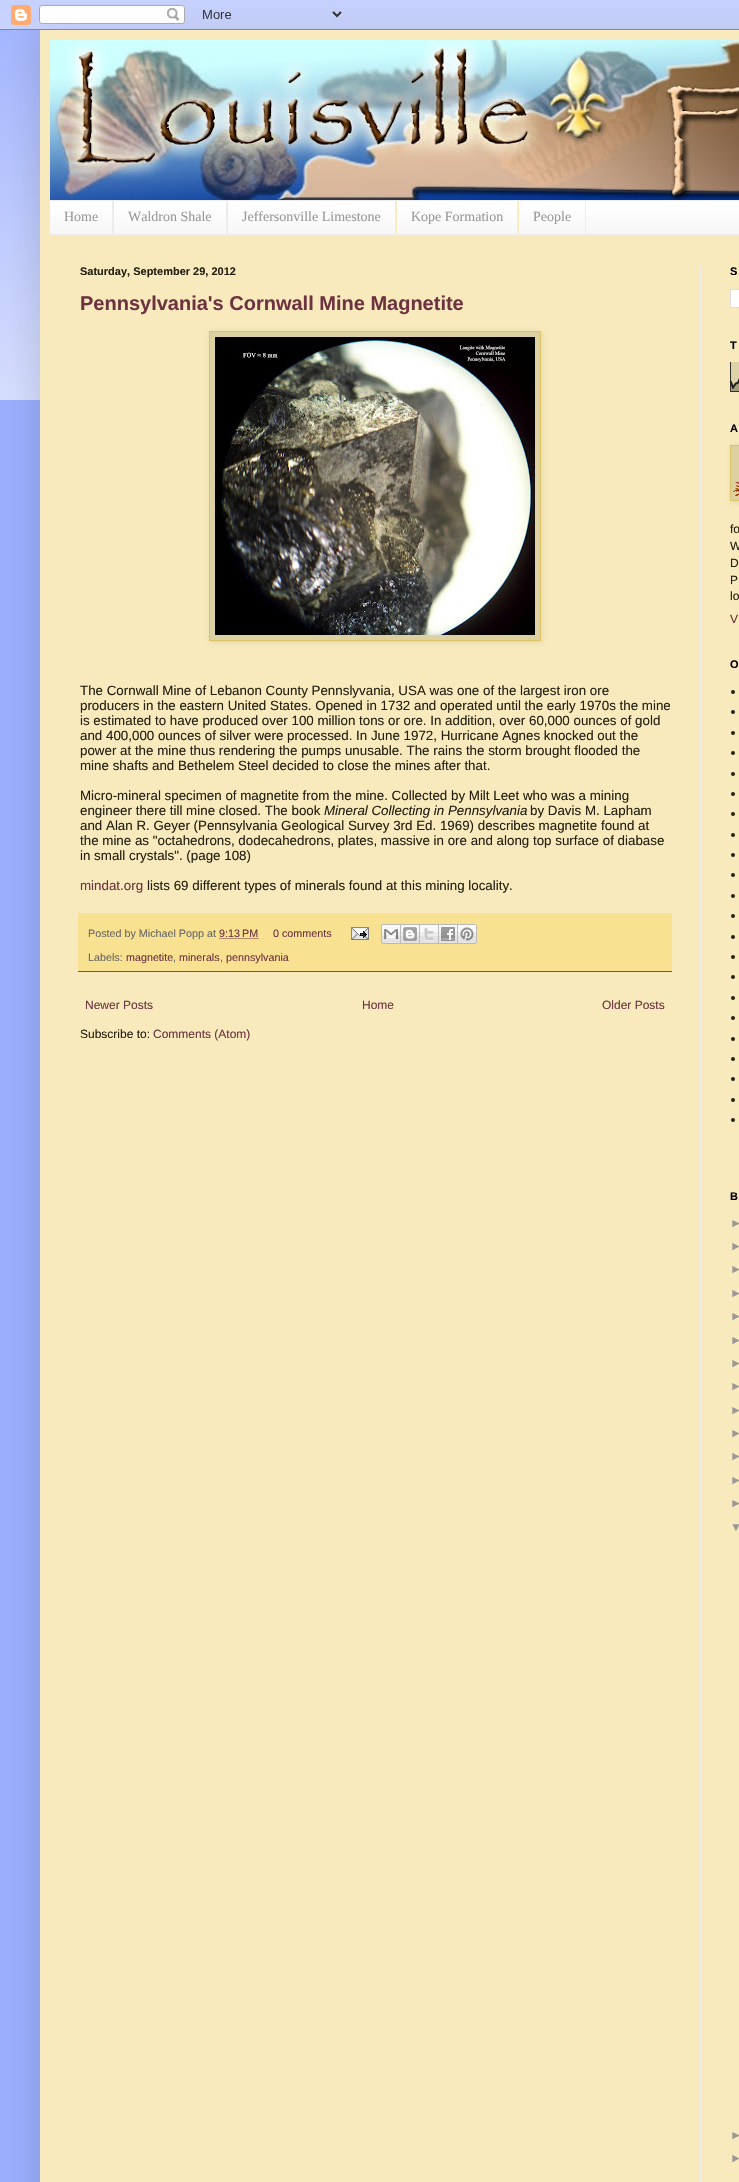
void draw(SkCanvas* canvas) {
    SkPaint paint;
    paint.setAntiAlias(true);
    auto face = [&](const char* family, int weight, float size, bool italic = false) {
        SkFontStyle style(weight, SkFontStyle::kNormal_Width,
            italic ? SkFontStyle::kItalic_Slant : SkFontStyle::kUpright_Slant);
        SkFont result(fontMgr->matchFamilyStyle(family, style), size);
        result.setSubpixel(true);
        return result;
    };
    auto write = [&](const char* s, float x, float y, const SkFont& font, SkColor color) {
        SkPaint ink(SkColor4f::FromColor(color));
        ink.setAntiAlias(true);
        canvas->drawString(s, x, y, font, ink);
    };
    auto block = [&](float x, float y, float w, float h, SkColor color) {
        SkPaint ink(SkColor4f::FromColor(color));
        ink.setAntiAlias(true);
        canvas->drawRect(SkRect::MakeXYWH(x, y, w, h), ink);
    };
    auto paste = [&](const char* path, float x, float y, float w, float h) {
        auto image = SkImages::DeferredFromEncodedData(SkData::MakeFromFileName(path));
        canvas->drawImageRect(image, SkRect::MakeXYWH(x, y, w, h), SkSamplingOptions());
    };
    canvas->clear(SkColorSetRGB(155, 175, 255));
    paste("pic1.png", 0, 0, 739, 400);
    paint.setColor(SkColorSetARGB(38, 0, 0, 0));
    paint.setMaskFilter(SkMaskFilter::MakeBlur(kNormal_SkBlurStyle, 20));
    canvas->drawRect(SkRect::MakeXYWH(40, 30, 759, 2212), paint);
    paint.setMaskFilter(nullptr);
    paste("pic2.png", 0, 0, 739, 30);
    block(40, 30, 699, 2152, SkColorSetRGB(248, 234, 188));
    paste("pic3.png", 50, 40, 689, 160);
    block(50, 202, 689, 32, SkColorSetRGB(245, 245, 245));
    paste("pic4.png", 50, 201, 689, 33);
    block(50, 200, 689, 1, SkColorSetRGB(238, 238, 238));
    block(50, 234, 689, 1, SkColorSetRGB(238, 238, 238));
    block(112, 201, 1, 33, SkColorSetRGB(238, 238, 238));
    auto kFont1 = face("Liberation Serif", 400, 14);
    write("Home", 64, 221, kFont1, SkColorSetRGB(153, 153, 153));
    block(226, 201, 1, 33, SkColorSetRGB(238, 238, 238));
    block(113, 201, 1, 33, SkColorSetRGB(248, 234, 188));
    write("Waldron Shale", 128, 221, kFont1, SkColorSetRGB(153, 153, 153));
    block(395, 201, 1, 33, SkColorSetRGB(238, 238, 238));
    block(227, 201, 1, 33, SkColorSetRGB(248, 234, 188));
    write("Jeffersonville Limestone", 242, 221, kFont1, SkColorSetRGB(153, 153, 153));
    block(517, 201, 1, 33, SkColorSetRGB(238, 238, 238));
    block(396, 201, 1, 33, SkColorSetRGB(248, 234, 188));
    write("Kope Formation", 411, 221, kFont1, SkColorSetRGB(153, 153, 153));
    block(585, 201, 1, 33, SkColorSetRGB(238, 238, 238));
    block(518, 201, 1, 33, SkColorSetRGB(248, 234, 188));
    write("People", 533, 221, kFont1, SkColorSetRGB(153, 153, 153));
    block(700, 265, 1, 1917, SkColorSetRGB(238, 238, 238));
    auto kFont2 = face("Liberation Sans", 700, 11);
    write("Saturday, September 29, 2012", 80, 275, kFont2, SkColorSetRGB(36, 32, 19));
    auto kFont3 = face("Liberation Sans", 700, 20);
    write("Pennsylvania's Cornwall Mine Magnetite", 80, 310, kFont3, SkColorSetRGB(110, 51, 64));
    paint.setColor(SkColorSetARGB(26, 0, 0, 0));
    paint.setMaskFilter(SkMaskFilter::MakeBlur(kNormal_SkBlurStyle, 2.5f));
    canvas->drawRect(SkRect::MakeXYWH(210, 332, 332, 310), paint);
    paint.setMaskFilter(nullptr);
    paint.setColor(SkColorSetRGB(221, 208, 161));
    canvas->drawRect(SkRect::MakeXYWH(209.5f, 331.5f, 331, 309), paint);
    paint.setStyle(SkPaint::kStroke_Style);
    paint.setStrokeWidth(1);
    paint.setColor(SkColorSetRGB(221, 195, 102));
    canvas->drawRect(SkRect::MakeXYWH(209.5f, 331.5f, 331, 309), paint);
    paste("pic5.png", 215, 337, 320, 298);
    auto kFont4 = face("Liberation Sans", 400, 13.35f);
    write("The Cornwall Mine of Lebanon County Pennslyvania, USA was one of the largest iron ore", 80, 695, kFont4, SkColorSetRGB(36, 32, 19));
    write("producers in the eastern United States. Opened in 1732 and operated until the early 1970s the mine", 80, 710, kFont4, SkColorSetRGB(36, 32, 19));
    write("is estimated to have produced over 100 million tons or ore. In addition, over 60,000 ounces of gold", 80, 725, kFont4, SkColorSetRGB(36, 32, 19));
    write("and 400,000 ounces of silver were processed. In June 1972, Hurricane Agnes knocked out the", 80, 740, kFont4, SkColorSetRGB(36, 32, 19));
    write("power at the mine thus rendering the pumps unusable. The rains the storm brought flooded the", 80, 755, kFont4, SkColorSetRGB(36, 32, 19));
    write("mine shafts and Bethelem Steel decided to close the mines after that.", 80, 770, kFont4, SkColorSetRGB(36, 32, 19));
    write("Micro-mineral specimen of magnetite from the mine. Collected by Milt Leet who was a mining", 80, 800, kFont4, SkColorSetRGB(36, 32, 19));
    write("engineer there till mine closed. The book", 80, 815, kFont4, SkColorSetRGB(36, 32, 19));
    auto kFont5 = face("Liberation Sans", 400, 13.35f, true);
    write("Mineral Collecting in Pennsylvania", 324, 815, kFont5, SkColorSetRGB(36, 32, 19));
    write("by Davis M. Lapham", 530, 815, kFont4, SkColorSetRGB(36, 32, 19));
    write("and Alan R. Geyer (Pennsylvania Geological Survey 3rd Ed. 1969) describes magnetite found at", 80, 830, kFont4, SkColorSetRGB(36, 32, 19));
    write("the mine as \"octahedrons, dodecahedrons, plates, massive in ore and along top surface of diabase", 80, 845, kFont4, SkColorSetRGB(36, 32, 19));
    write("in small crystals\". (page 108)", 80, 860, kFont4, SkColorSetRGB(36, 32, 19));
    write("mindat.org", 80, 890, kFont4, SkColorSetRGB(110, 51, 64));
    write("lists 69 different types of minerals found at this mining locality.", 147, 890, kFont4, SkColorSetRGB(36, 32, 19));
    block(78, 913, 594, 58, SkColorSetRGB(248, 225, 145));
    block(78, 971, 594, 1, SkColorSetRGB(110, 97, 51));
    auto kFont6 = face("Liberation Sans", 400, 10.75f);
    write("Posted by Michael Popp at", 88, 937, kFont6, SkColorSetRGB(102, 102, 102));
    write("9:13 PM", 219, 937, kFont6, SkColorSetRGB(110, 51, 64));
    paint.setColor(SkColorSetRGB(110, 51, 64));
    paint.setPathEffect(SkDashPathEffect::Make({{1, 1}}, 0));
    canvas->drawPath(SkPathBuilder().moveTo(219.5f, 938.5f).lineTo(259, 938.5f).detach(), paint);
    paint.setPathEffect(nullptr);
    write("0 comments", 273, 937, kFont6, SkColorSetRGB(110, 51, 64));
    paste("pic6.png", 351, 927, 18, 13);
    paste("pic7.png", 381, 924, 20, 20);
    paste("pic8.png", 401, 924, 19, 20);
    paste("pic9.png", 420, 924, 19, 20);
    paste("pic10.png", 439, 924, 19, 20);
    paste("pic11.png", 458, 924, 19, 20);
    write("Labels:", 88, 961, kFont6, SkColorSetRGB(102, 102, 102));
    write("magnetite", 126, 961, kFont6, SkColorSetRGB(110, 51, 64));
    write(",", 173, 961, kFont6, SkColorSetRGB(102, 102, 102));
    write("minerals", 179, 961, kFont6, SkColorSetRGB(110, 51, 64));
    write(",", 220, 961, kFont6, SkColorSetRGB(102, 102, 102));
    write("pennsylvania", 226, 961, kFont6, SkColorSetRGB(110, 51, 64));
    auto kFont7 = face("Liberation Sans", 400, 12);
    write("Newer Posts", 85, 1009, kFont7, SkColorSetRGB(110, 51, 64));
    write("Home", 362, 1009, kFont7, SkColorSetRGB(110, 51, 64));
    write("Older Posts", 602, 1009, kFont7, SkColorSetRGB(110, 51, 64));
    write("Subscribe to:", 80, 1038, kFont7, SkColorSetRGB(36, 32, 19));
    write("Comments (Atom)", 153, 1038, kFont7, SkColorSetRGB(110, 51, 64));
    write("S", 730, 275, kFont2, SK_ColorBLACK);
    paint.setStyle(SkPaint::kFill_Style);
    paint.setColor(SK_ColorWHITE);
    canvas->drawRect(SkRect::MakeXYWH(730.5f, 289.5f, 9, 18), paint);
    paint.setStyle(SkPaint::kStroke_Style);
    paint.setColor(SkColorSetRGB(221, 221, 221));
    canvas->drawRect(SkRect::MakeXYWH(730.5f, 289.5f, 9, 18), paint);
    write("T", 730, 349, kFont2, SK_ColorBLACK);
    paste("pic12.png", 730, 362, 9, 30);
    write("A", 730, 432, kFont2, SK_ColorBLACK);
    paint.setStyle(SkPaint::kFill_Style);
    paint.setColor(SkColorSetARGB(26, 0, 0, 0));
    paint.setMaskFilter(SkMaskFilter::MakeBlur(kNormal_SkBlurStyle, 2.5f));
    canvas->drawRect(SkRect::MakeXYWH(731, 446, 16, 56), paint);
    paint.setMaskFilter(nullptr);
    paint.setColor(SkColorSetRGB(221, 208, 161));
    canvas->drawRect(SkRect::MakeXYWH(730.5f, 445.5f, 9, 55), paint);
    paint.setStyle(SkPaint::kStroke_Style);
    paint.setColor(SkColorSetRGB(221, 195, 102));
    canvas->drawRect(SkRect::MakeXYWH(730.5f, 445.5f, 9, 55), paint);
    paste("pic13.png", 733, 482, 6, 14);
    write("fo", 730, 533, kFont7, SkColorSetRGB(36, 32, 19));
    write("W", 730, 550, kFont7, SkColorSetRGB(36, 32, 19));
    write("D", 730, 567, kFont7, SkColorSetRGB(36, 32, 19));
    write("P", 730, 584, kFont7, SkColorSetRGB(36, 32, 19));
    write("lo", 730, 600, kFont7, SkColorSetRGB(36, 32, 19));
    write("V", 730, 623, kFont7, SkColorSetRGB(110, 51, 64));
    write("O", 730, 668, kFont2, SK_ColorBLACK);
    paint.setStyle(SkPaint::kFill_Style);
    paint.setColor(SkColorSetRGB(36, 32, 19));
    canvas->drawCircle(733, 692, 2, paint);
    canvas->drawCircle(733, 712, 2, paint);
    canvas->drawCircle(733, 733, 2, paint);
    canvas->drawCircle(733, 753, 2, paint);
    canvas->drawCircle(733, 774, 2, paint);
    canvas->drawCircle(733, 794, 2, paint);
    canvas->drawCircle(733, 814, 2, paint);
    canvas->drawCircle(733, 835, 2, paint);
    canvas->drawCircle(733, 855, 2, paint);
    canvas->drawCircle(733, 875, 2, paint);
    canvas->drawCircle(733, 896, 2, paint);
    canvas->drawCircle(733, 916, 2, paint);
    canvas->drawCircle(733, 937, 2, paint);
    canvas->drawCircle(733, 957, 2, paint);
    canvas->drawCircle(733, 977, 2, paint);
    canvas->drawCircle(733, 998, 2, paint);
    canvas->drawCircle(733, 1018, 2, paint);
    canvas->drawCircle(733, 1039, 2, paint);
    canvas->drawCircle(733, 1059, 2, paint);
    canvas->drawCircle(733, 1079, 2, paint);
    canvas->drawCircle(733, 1100, 2, paint);
    canvas->drawCircle(733, 1120, 2, paint);
    write("B", 730, 1200, kFont2, SK_ColorBLACK);
    write("►", 730, 1227, kFont7, SkColorSetRGB(153, 153, 153));
    write("►", 730, 1250, kFont7, SkColorSetRGB(153, 153, 153));
    write("►", 730, 1273, kFont7, SkColorSetRGB(153, 153, 153));
    write("►", 730, 1297, kFont7, SkColorSetRGB(153, 153, 153));
    write("►", 730, 1320, kFont7, SkColorSetRGB(153, 153, 153));
    write("►", 730, 1344, kFont7, SkColorSetRGB(153, 153, 153));
    write("►", 730, 1367, kFont7, SkColorSetRGB(153, 153, 153));
    write("►", 730, 1390, kFont7, SkColorSetRGB(153, 153, 153));
    write("►", 730, 1414, kFont7, SkColorSetRGB(153, 153, 153));
    write("►", 730, 1437, kFont7, SkColorSetRGB(153, 153, 153));
    write("►", 730, 1460, kFont7, SkColorSetRGB(153, 153, 153));
    write("►", 730, 1484, kFont7, SkColorSetRGB(153, 153, 153));
    write("►", 730, 1507, kFont7, SkColorSetRGB(153, 153, 153));
    write("▼", 730, 1531, kFont7, SkColorSetRGB(153, 153, 153));
    write("►", 730, 2139, kFont7, SkColorSetRGB(153, 153, 153));
    write("►", 730, 2162, kFont7, SkColorSetRGB(153, 153, 153));
}
